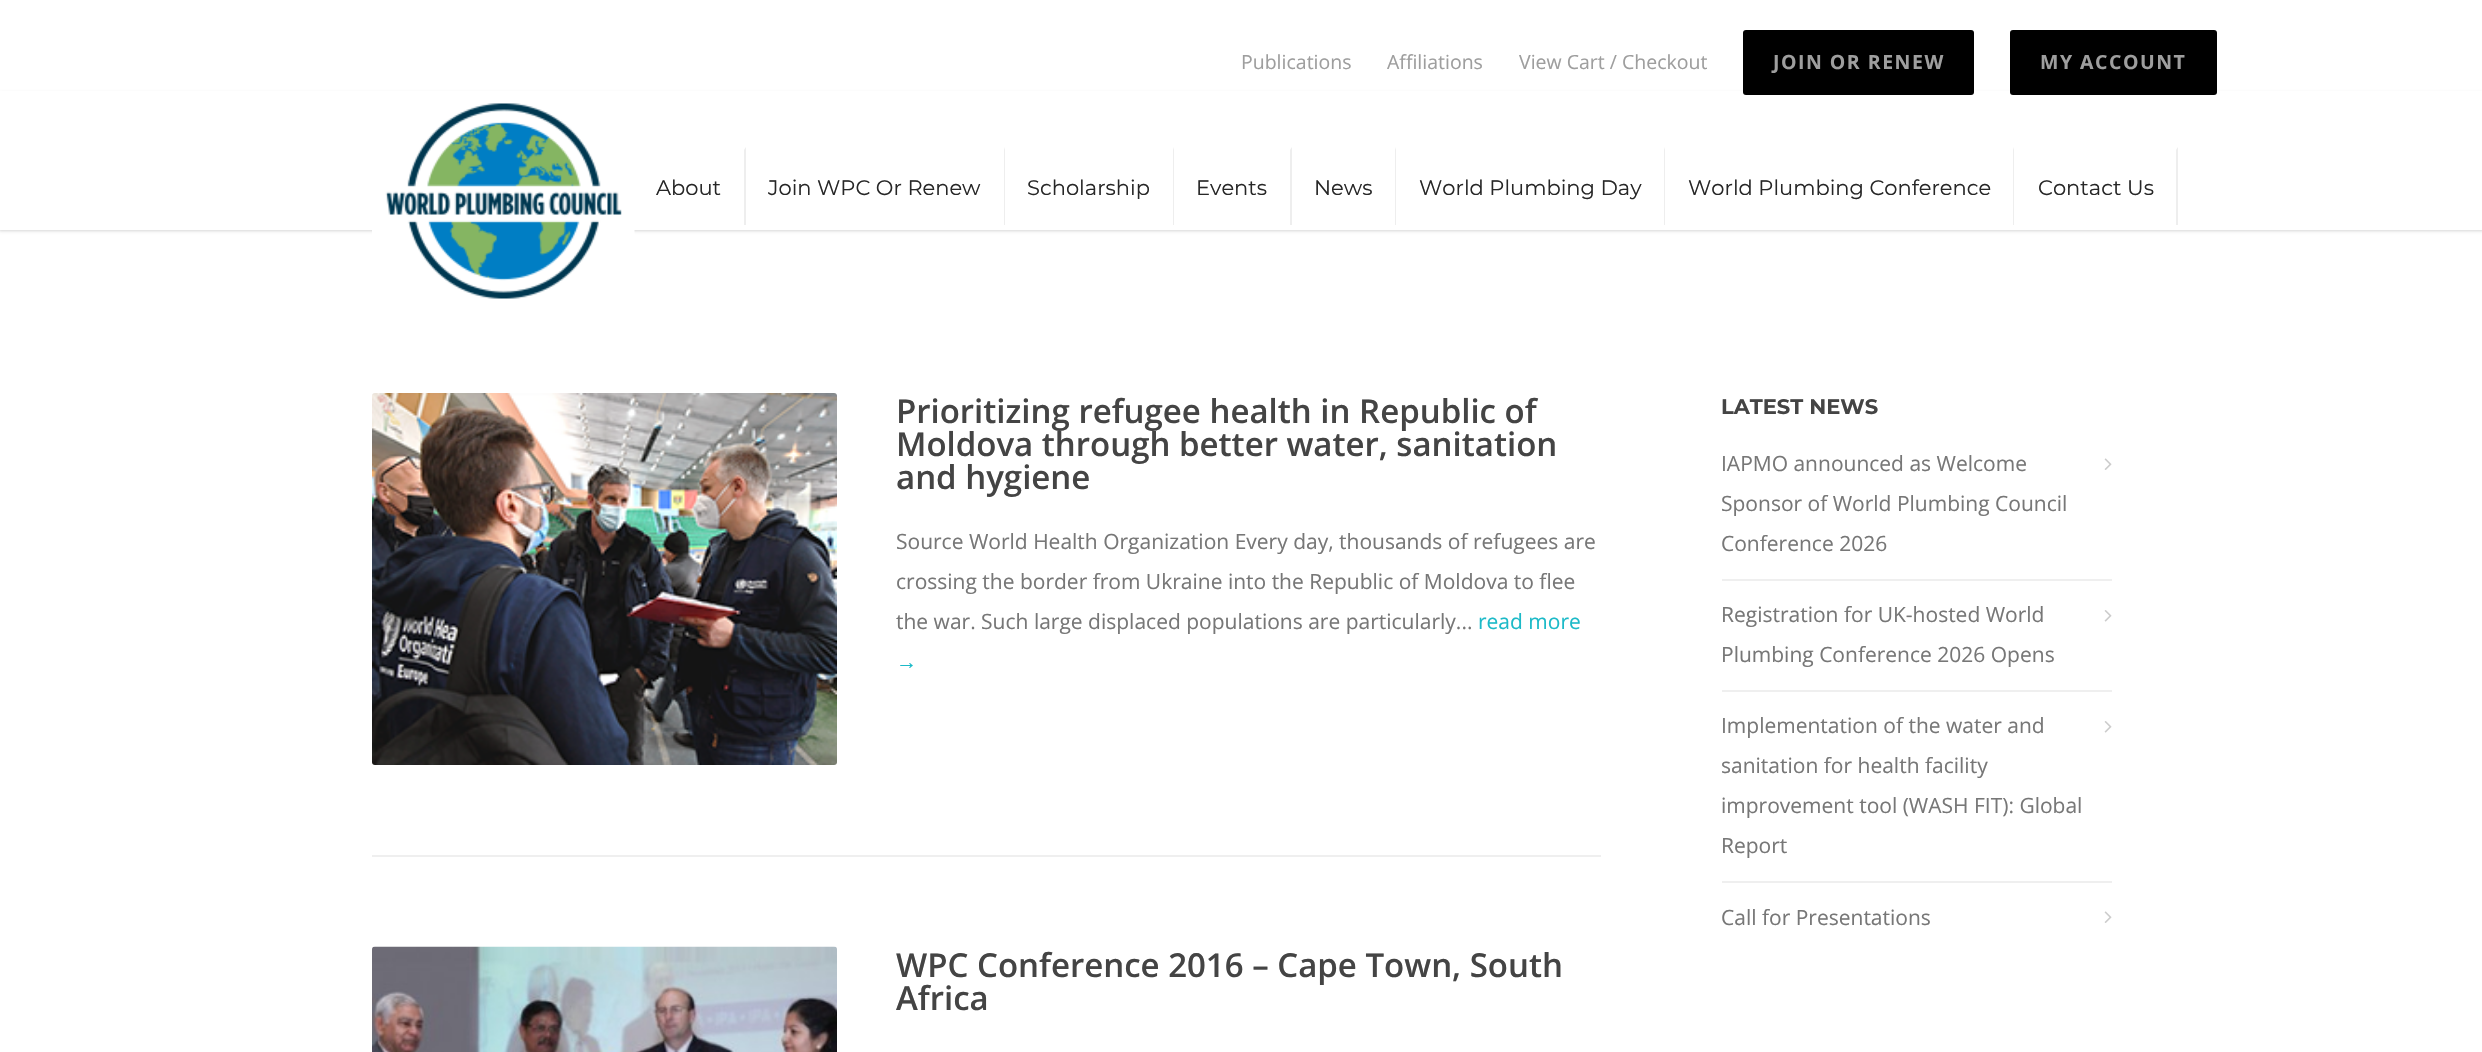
void draw(SkCanvas* canvas) {
    SkPaint paint;
    paint.setAntiAlias(true);
    auto face = [&](const char* family, int weight, float size, bool italic = false) {
        SkFontStyle style(weight, SkFontStyle::kNormal_Width,
            italic ? SkFontStyle::kItalic_Slant : SkFontStyle::kUpright_Slant);
        SkFont result(fontMgr->matchFamilyStyle(family, style), size);
        result.setSubpixel(true);
        return result;
    };
    auto write = [&](const char* s, float x, float y, const SkFont& font, SkColor color) {
        SkPaint ink(SkColor4f::FromColor(color));
        ink.setAntiAlias(true);
        canvas->drawString(s, x, y, font, ink);
    };
    auto writeSpaced = [&](const char* s, float x, float y, const SkFont& font, const SkPaint& ink, float letter, float word) {
        std::vector<SkGlyphID> glyphs(font.countText(s, strlen(s), SkTextEncoding::kUTF8));
        std::vector<float> xs(glyphs.size());
        font.textToGlyphs(s, strlen(s), SkTextEncoding::kUTF8, glyphs);
        font.getXPos(glyphs, xs, x);
        float extra = 0;
        for (size_t i = 0; i < glyphs.size(); i++) {
            xs[i] += extra;
            extra += letter + word * (glyphs[i] == font.unicharToGlyph(' '));
        }
        canvas->drawTextBlob(SkTextBlob::MakeFromPosHGlyphs(glyphs, xs, y, font), 0, 0, ink);
    };
    auto block = [&](float x, float y, float w, float h, SkColor color) {
        SkPaint ink(SkColor4f::FromColor(color));
        ink.setAntiAlias(true);
        canvas->drawRect(SkRect::MakeXYWH(x, y, w, h), ink);
    };
    auto card = [&](float x, float y, float w, float h, float radius, SkColor color) {
        SkPaint ink(SkColor4f::FromColor(color));
        ink.setAntiAlias(true);
        canvas->drawRoundRect(SkRect::MakeXYWH(x, y, w, h), radius, radius, ink);
    };
    auto paste = [&](const char* path, float x, float y, float w, float h) {
        auto image = SkImages::DeferredFromEncodedData(SkData::MakeFromFileName(path));
        canvas->drawImageRect(image, SkRect::MakeXYWH(x, y, w, h), SkSamplingOptions());
    };
    canvas->clear(SK_ColorWHITE);
    auto kFont1 = face("Open Sans", 400, 19.5f);
    write("Publications", 1241, 69, kFont1, SkColorSetRGB(158, 158, 158));
    write("Affiliations", 1387, 69, kFont1, SkColorSetRGB(158, 158, 158));
    write("View Cart / Checkout", 1519, 69, kFont1, SkColorSetRGB(158, 158, 158));
    paint.setColor(SkColorSetARGB(41, 0, 0, 0));
    paint.setMaskFilter(SkMaskFilter::MakeBlur(kNormal_SkBlurStyle, 1.5f));
    canvas->drawRect(SkRect::MakeXYWH(-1, 93, 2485, 138), paint);
    paint.setMaskFilter(nullptr);
    block(0, 91, 2482, 139, SK_ColorWHITE);
    card(1743, 30, 231, 65, 3, SK_ColorBLACK);
    auto kFont2 = face("Open Sans", 700, 19.5f);
    paint.setColor(SkColorSetRGB(158, 158, 158));
    writeSpaced("JOIN OR RENEW", 1773, 69, kFont2, paint, 1.5f, 0);
    card(2010, 30, 207, 65, 3, SK_ColorBLACK);
    writeSpaced("MY ACCOUNT", 2040, 69, kFont2, paint, 1.5f, 0);
    paste("pic1.png", 372, 95, 263, 204);
    paint.setColor(SkColorSetRGB(238, 238, 238));
    canvas->drawPath(SkPathBuilder().moveTo(746, 147).lineTo(746, 225).lineTo(744, 225).lineTo(744, 150).close().detach(), paint);
    auto kFont3 = face("Montserrat", 400, 21);
    write("About", 656, 195, kFont3, SkColorSetRGB(39, 39, 39));
    canvas->drawPath(SkPathBuilder().moveTo(1005, 147).lineTo(1005, 225).lineTo(1004, 225).lineTo(1004, 150).close().detach(), paint);
    write("Join WPC Or Renew", 768, 195, kFont3, SkColorSetRGB(39, 39, 39));
    canvas->drawPath(SkPathBuilder().moveTo(1174, 147).lineTo(1174, 225).lineTo(1173, 225).lineTo(1173, 150).close().detach(), paint);
    write("Scholarship", 1027, 195, kFont3, SkColorSetRGB(39, 39, 39));
    canvas->drawPath(SkPathBuilder().moveTo(1292, 147).lineTo(1292, 225).lineTo(1290, 225).lineTo(1290, 150).close().detach(), paint);
    write("Events", 1196, 195, kFont3, SkColorSetRGB(39, 39, 39));
    canvas->drawPath(SkPathBuilder().moveTo(1396, 147).lineTo(1396, 225).lineTo(1395, 225).lineTo(1395, 150).close().detach(), paint);
    write("News", 1314, 195, kFont3, SkColorSetRGB(39, 39, 39));
    canvas->drawPath(SkPathBuilder().moveTo(1665, 147).lineTo(1665, 225).lineTo(1664, 225).lineTo(1664, 150).close().detach(), paint);
    write("World Plumbing Day", 1419, 195, kFont3, SkColorSetRGB(39, 39, 39));
    canvas->drawPath(SkPathBuilder().moveTo(2014, 147).lineTo(2014, 225).lineTo(2013, 225).lineTo(2013, 150).close().detach(), paint);
    write("World Plumbing Conference", 1688, 195, kFont3, SkColorSetRGB(39, 39, 39));
    canvas->drawPath(SkPathBuilder().moveTo(2178, 147).lineTo(2178, 225).lineTo(2176, 225).lineTo(2176, 150).close().detach(), paint);
    write("Contact Us", 2038, 195, kFont3, SkColorSetRGB(39, 39, 39));
    block(372, 855, 1229, 2, SkColorSetRGB(239, 239, 239));
    paste("pic2.png", 372, 393, 465, 372);
    auto kFont4 = face("Open Sans", 600, 33);
    write("Prioritizing refugee health in Republic of", 896, 423, kFont4, SkColorSetRGB(68, 68, 68));
    write("Moldova through better water, sanitation", 896, 456, kFont4, SkColorSetRGB(68, 68, 68));
    write("and hygiene", 896, 489, kFont4, SkColorSetRGB(68, 68, 68));
    auto kFont5 = face("Open Sans", 400, 21);
    write("Source World Health Organization Every day, thousands of refugees are", 896, 549, kFont5, SkColorSetRGB(119, 119, 119));
    write("crossing the border from Ukraine into the Republic of Moldova to flee", 896, 589, kFont5, SkColorSetRGB(119, 119, 119));
    write("the war. Such large displaced populations are particularly...", 896, 629, kFont5, SkColorSetRGB(119, 119, 119));
    write("read more", 1478, 629, kFont5, SkColorSetRGB(28, 186, 200));
    auto kFont6 = face("Liberation Sans", 400, 21);
    write("→", 896, 669, kFont6, SkColorSetRGB(28, 186, 200));
    paste("pic3.png", 372, 946, 465, 106);
    write("WPC Conference 2016 – Cape Town, South", 896, 977, kFont4, SkColorSetRGB(68, 68, 68));
    write("Africa", 896, 1010, kFont4, SkColorSetRGB(68, 68, 68));
    auto kFont7 = face("Montserrat", 700, 21);
    write("LATEST NEWS", 1721, 414, kFont7, SkColorSetRGB(68, 68, 68));
    block(1722, 579, 390, 2, SkColorSetRGB(239, 239, 239));
    write("IAPMO announced as Welcome", 1721, 471, kFont5, SkColorSetRGB(119, 119, 119));
    write("Sponsor of World Plumbing Council", 1721, 511, kFont5, SkColorSetRGB(119, 119, 119));
    write("Conference 2026", 1721, 551, kFont5, SkColorSetRGB(119, 119, 119));
    paste("pic4.png", 2104, 458, 8, 12);
    block(1722, 690, 390, 2, SkColorSetRGB(239, 239, 239));
    write("Registration for UK-hosted World", 1721, 622, kFont5, SkColorSetRGB(119, 119, 119));
    write("Plumbing Conference 2026 Opens", 1721, 662, kFont5, SkColorSetRGB(119, 119, 119));
    paste("pic5.png", 2104, 610, 8, 12);
    block(1722, 881, 390, 2, SkColorSetRGB(239, 239, 239));
    write("Implementation of the water and", 1721, 733, kFont5, SkColorSetRGB(119, 119, 119));
    write("sanitation for health facility", 1721, 773, kFont5, SkColorSetRGB(119, 119, 119));
    write("improvement tool (WASH FIT): Global", 1721, 813, kFont5, SkColorSetRGB(119, 119, 119));
    write("Report", 1721, 853, kFont5, SkColorSetRGB(119, 119, 119));
    paste("pic5.png", 2104, 721, 8, 12);
    write("Call for Presentations", 1721, 925, kFont5, SkColorSetRGB(119, 119, 119));
    paste("pic4.png", 2104, 911, 8, 12);
}
